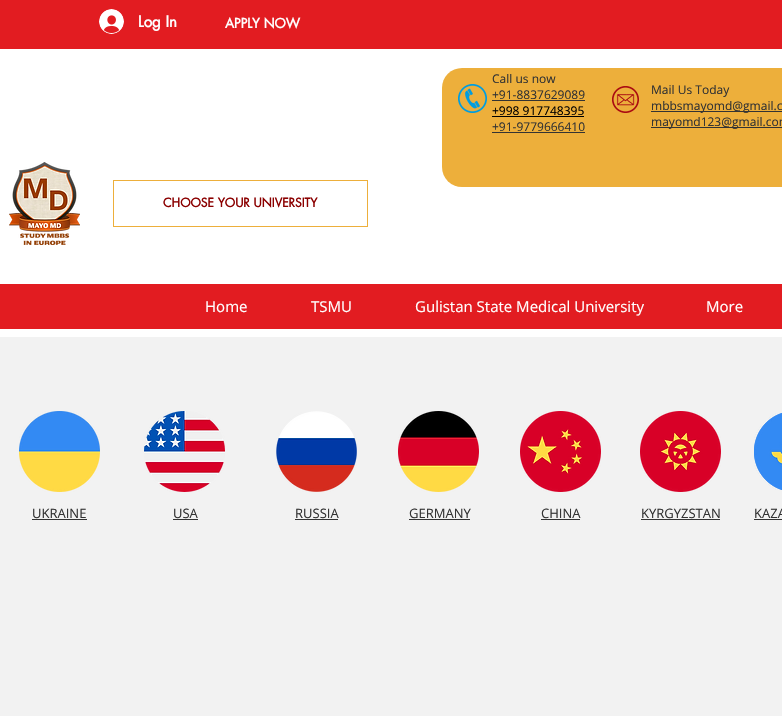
void draw(SkCanvas* canvas) {
    SkPaint paint;
    paint.setAntiAlias(true);
    auto face = [&](const char* family, int weight, float size, bool italic = false) {
        SkFontStyle style(weight, SkFontStyle::kNormal_Width,
            italic ? SkFontStyle::kItalic_Slant : SkFontStyle::kUpright_Slant);
        SkFont result(fontMgr->matchFamilyStyle(family, style), size);
        result.setSubpixel(true);
        return result;
    };
    auto write = [&](const char* s, float x, float y, const SkFont& font, SkColor color) {
        SkPaint ink(SkColor4f::FromColor(color));
        ink.setAntiAlias(true);
        canvas->drawString(s, x, y, font, ink);
    };
    auto block = [&](float x, float y, float w, float h, SkColor color) {
        SkPaint ink(SkColor4f::FromColor(color));
        ink.setAntiAlias(true);
        canvas->drawRect(SkRect::MakeXYWH(x, y, w, h), ink);
    };
    auto card = [&](float x, float y, float w, float h, float radius, SkColor color) {
        SkPaint ink(SkColor4f::FromColor(color));
        ink.setAntiAlias(true);
        canvas->drawRoundRect(SkRect::MakeXYWH(x, y, w, h), radius, radius, ink);
    };
    auto paste = [&](const char* path, float x, float y, float w, float h) {
        auto image = SkImages::DeferredFromEncodedData(SkData::MakeFromFileName(path));
        canvas->drawImageRect(image, SkRect::MakeXYWH(x, y, w, h), SkSamplingOptions());
    };
    canvas->clear(SkColorSetRGB(242, 242, 242));
    block(0, 0, 782, 49, SkColorSetRGB(226, 28, 33));
    paste("pic1.png", 99, 9, 25, 25);
    auto kFont1 = face("futura", 700, 15);
    write("Log In", 138, 27, kFont1, SK_ColorWHITE);
    auto kFont2 = face("futura", 700, 13);
    write("APPLY NOW", 225, 28, kFont2, SK_ColorWHITE);
    block(0, 49, 782, 288, SK_ColorWHITE);
    card(442, 68, 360, 119, 20, SkColorSetRGB(237, 175, 59));
    paste("pic2.png", 458, 84, 29, 29);
    auto kFont3 = face("Open Sans", 400, 12);
    write("Call us now", 492, 83, kFont3, SkColorSetRGB(51, 51, 51));
    write("+91-8837629089", 492, 99, kFont3, SkColorSetRGB(51, 51, 51));
    block(492, 100, 93, 1, SkColorSetRGB(51, 51, 51));
    write("+998 917748395", 492, 115, kFont3, SK_ColorBLACK);
    block(492, 116, 92, 1, SK_ColorBLACK);
    write("+91-9779666410", 492, 131, kFont3, SkColorSetRGB(51, 51, 51));
    block(492, 132, 93, 1, SkColorSetRGB(51, 51, 51));
    paste("pic3.png", 612, 86, 27, 27);
    write("Mail Us Today", 651, 94, kFont3, SkColorSetRGB(51, 51, 51));
    block(651, 111, 131, 1, SkColorSetRGB(51, 51, 51));
    write("mbbsmayomd@gmail.c", 651, 110, kFont3, SkColorSetRGB(51, 51, 51));
    block(651, 127, 131, 1, SkColorSetRGB(51, 51, 51));
    write("mayomd123@gmail.com", 651, 126, kFont3, SkColorSetRGB(51, 51, 51));
    paste("pic4.png", 9, 162, 71, 83);
    paint.setStyle(SkPaint::kStroke_Style);
    paint.setStrokeWidth(1);
    paint.setColor(SkColorSetRGB(237, 175, 59));
    canvas->drawRect(SkRect::MakeXYWH(113.5f, 180.5f, 254, 46), paint);
    auto kFont4 = face("futura", 700, 12);
    write("CHOOSE YOUR UNIVERSITY", 163, 207, kFont4, SkColorSetRGB(139, 0, 0));
    block(0, 284, 782, 45, SkColorSetRGB(226, 28, 33));
    auto kFont5 = face("Open Sans", 400, 15);
    write("Home", 205, 312, kFont5, SK_ColorWHITE);
    write("TSMU", 311, 312, kFont5, SK_ColorWHITE);
    write("Gulistan State Medical University", 415, 312, kFont5, SK_ColorWHITE);
    write("More", 706, 312, kFont5, SK_ColorWHITE);
    paste("pic5.png", 19, 411, 81, 81);
    paste("pic6.png", 144, 411, 81, 81);
    paste("pic7.png", 276, 411, 81, 81);
    paste("pic8.png", 398, 411, 81, 81);
    paste("pic9.png", 520, 411, 81, 81);
    paste("pic10.png", 640, 411, 81, 81);
    paste("pic11.png", 754, 413, 28, 77);
    paste("pic12.png", 754, 413, 28, 77);
    auto kFont6 = face("Open Sans", 400, 13);
    write("UKRAINE", 32, 518, kFont6, SkColorSetRGB(51, 51, 51));
    block(32, 519, 55, 1, SkColorSetRGB(51, 51, 51));
    write("USA", 173, 518, kFont6, SkColorSetRGB(51, 51, 51));
    block(173, 519, 25, 1, SkColorSetRGB(51, 51, 51));
    write("RUSSIA", 295, 518, kFont6, SkColorSetRGB(51, 51, 51));
    block(295, 519, 43, 1, SkColorSetRGB(51, 51, 51));
    write("GERMANY", 409, 518, kFont6, SkColorSetRGB(51, 51, 51));
    block(409, 519, 61, 1, SkColorSetRGB(51, 51, 51));
    write("CHINA", 541, 518, kFont6, SkColorSetRGB(51, 51, 51));
    block(541, 519, 39, 1, SkColorSetRGB(51, 51, 51));
    write("KYRGYZSTAN", 641, 518, kFont6, SkColorSetRGB(51, 51, 51));
    block(641, 519, 79, 1, SkColorSetRGB(51, 51, 51));
    write("KAZA", 754, 518, kFont6, SkColorSetRGB(51, 51, 51));
    block(754, 519, 28, 1, SkColorSetRGB(51, 51, 51));
}
